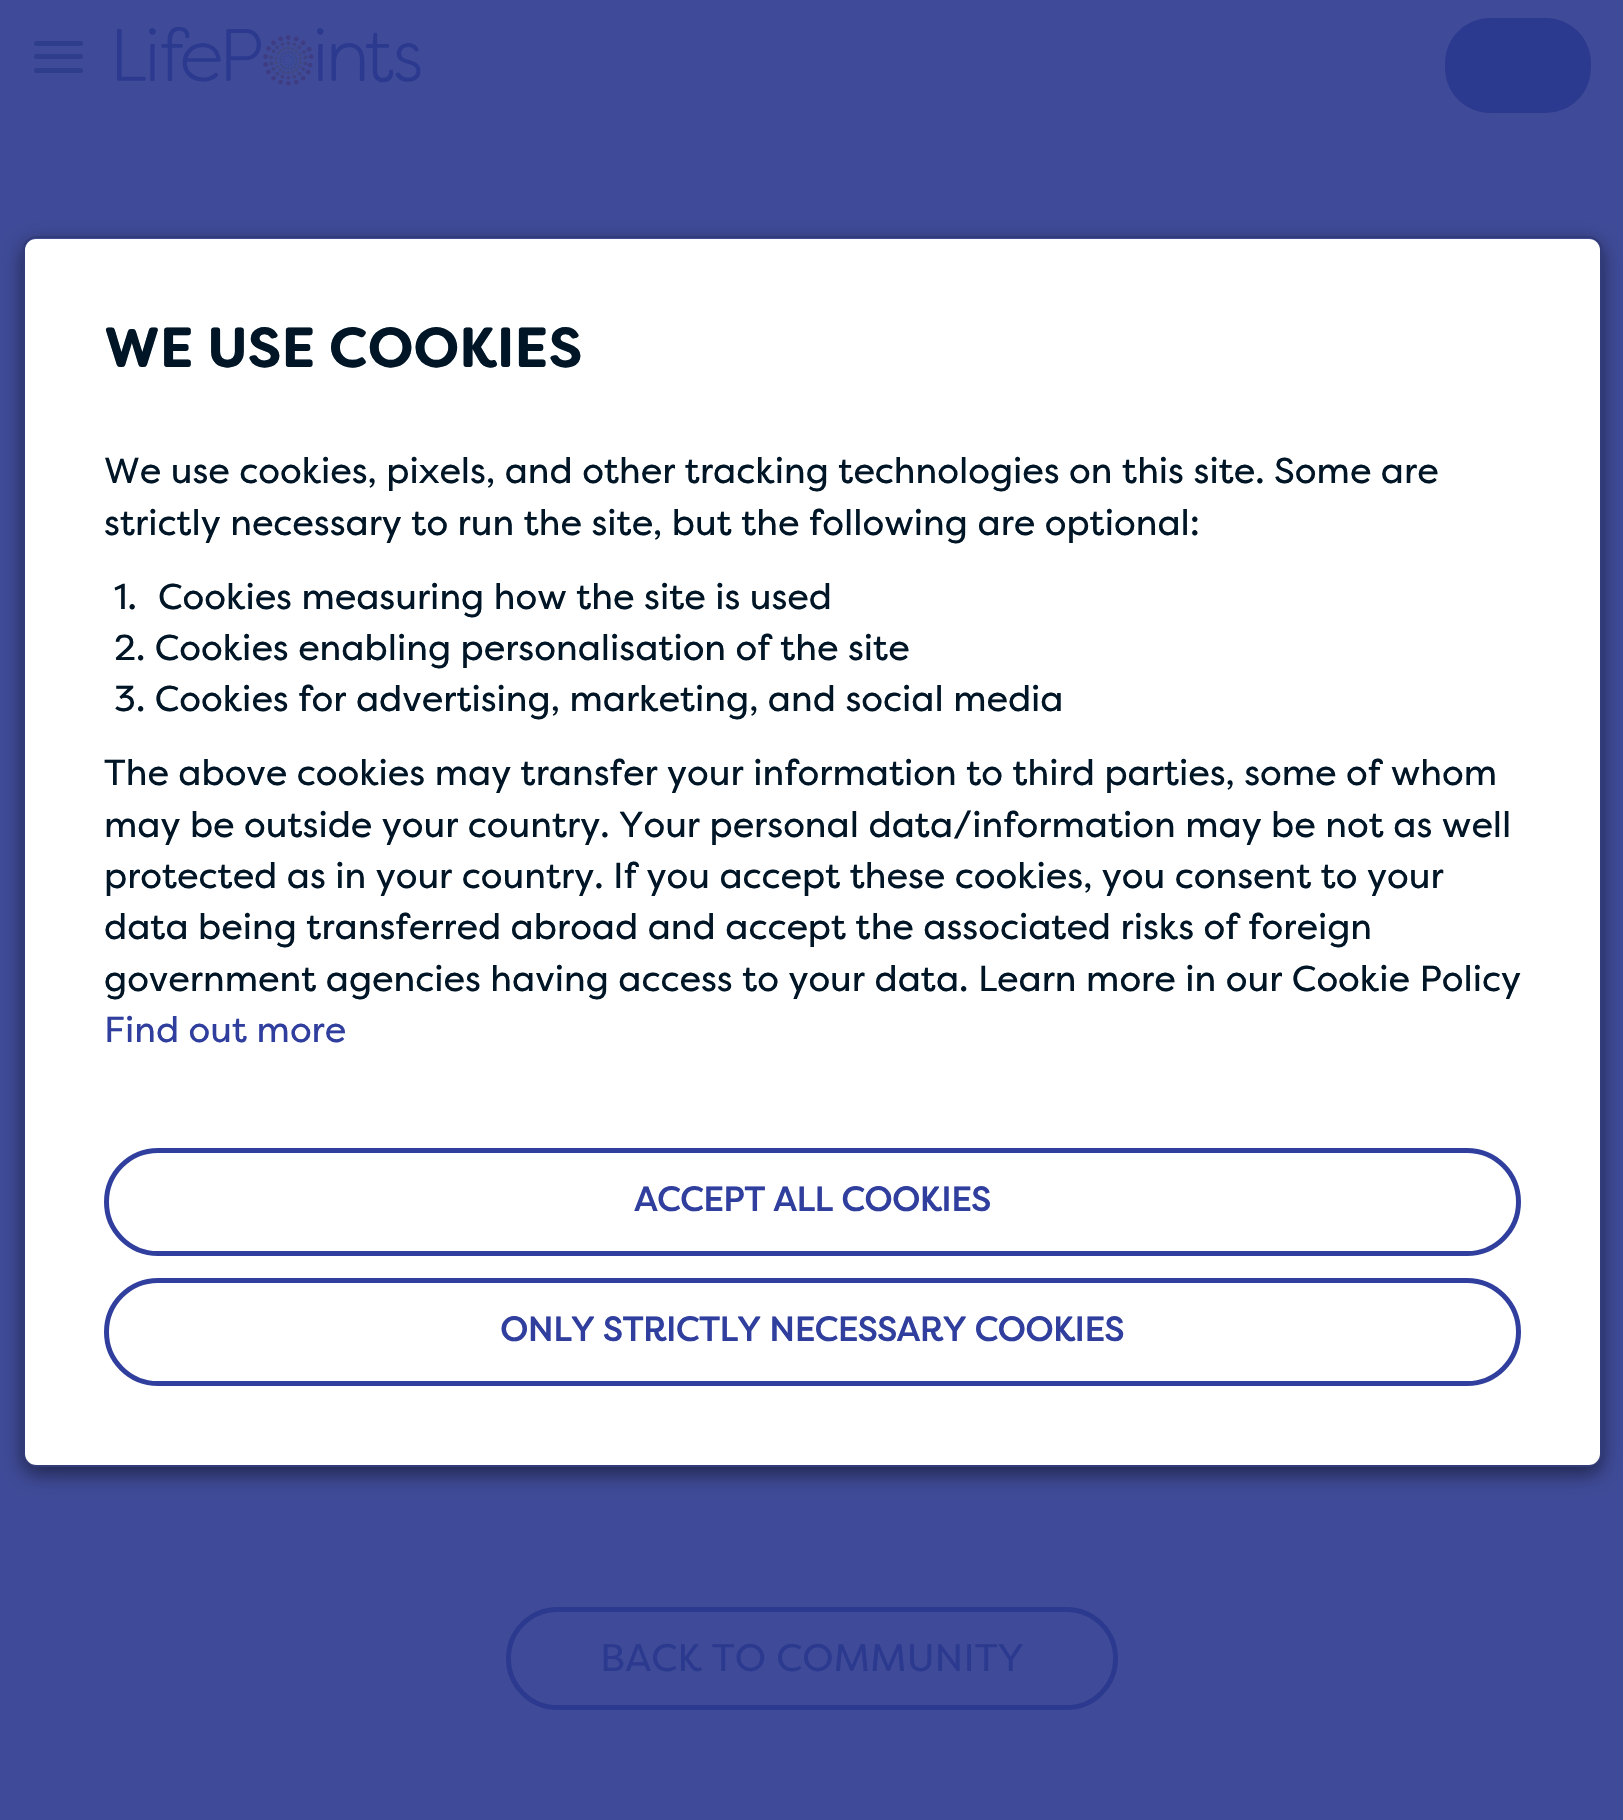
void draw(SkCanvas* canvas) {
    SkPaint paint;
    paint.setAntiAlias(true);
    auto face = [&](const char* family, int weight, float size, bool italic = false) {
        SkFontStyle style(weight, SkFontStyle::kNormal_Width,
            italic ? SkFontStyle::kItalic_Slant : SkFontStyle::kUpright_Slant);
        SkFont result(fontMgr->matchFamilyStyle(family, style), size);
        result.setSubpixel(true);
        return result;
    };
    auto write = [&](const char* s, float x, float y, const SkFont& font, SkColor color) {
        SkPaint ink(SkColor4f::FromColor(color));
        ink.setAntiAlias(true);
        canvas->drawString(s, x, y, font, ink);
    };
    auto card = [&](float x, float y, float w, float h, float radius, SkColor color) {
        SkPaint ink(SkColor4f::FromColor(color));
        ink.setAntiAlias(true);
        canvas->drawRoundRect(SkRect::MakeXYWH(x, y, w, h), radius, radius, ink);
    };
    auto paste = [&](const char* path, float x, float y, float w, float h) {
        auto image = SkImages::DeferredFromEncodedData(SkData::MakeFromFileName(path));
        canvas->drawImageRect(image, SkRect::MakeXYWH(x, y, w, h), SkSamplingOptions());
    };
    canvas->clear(SkColorSetRGB(63, 75, 152));
    card(34, 41, 49, 5, 2.5f, SkColorSetRGB(46, 61, 140));
    card(34, 54, 49, 5, 2.5f, SkColorSetRGB(46, 61, 140));
    card(34, 68, 49, 5, 2.5f, SkColorSetRGB(46, 61, 140));
    paste("pic1.png", 117, 26, 304, 60);
    card(1445, 18, 146, 95, 45, SkColorSetRGB(43, 57, 143));
    canvas->save();
    canvas->clipPath(SkPathBuilder(SkPathFillType::kEvenOdd).moveTo(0, 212).lineTo(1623, 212).lineTo(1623, 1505).lineTo(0, 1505).close().moveTo(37, 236).lineTo(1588, 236).cubicTo(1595.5f, 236, 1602, 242.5f, 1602, 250).lineTo(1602, 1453).cubicTo(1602, 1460.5f, 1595.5f, 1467, 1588, 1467).lineTo(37, 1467).cubicTo(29.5f, 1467, 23, 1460.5f, 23, 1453).lineTo(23, 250).cubicTo(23, 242.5f, 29.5f, 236, 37, 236).close().detach(), true);
    paint.setColor(SkColorSetARGB(128, 0, 0, 0));
    paint.setMaskFilter(SkMaskFilter::MakeBlur(kNormal_SkBlurStyle, 10));
    canvas->drawRoundRect(SkRect::MakeXYWH(23, 243, 1579, 1231), 14, 14, paint);
    paint.setMaskFilter(nullptr);
    canvas->restore();
    card(25, 239, 1575, 1226, 11, SK_ColorWHITE);
    paint.setStyle(SkPaint::kStroke_Style);
    paint.setStrokeWidth(2);
    paint.setColor(SkColorSetARGB(51, 0, 0, 0));
    canvas->drawRoundRect(SkRect::MakeXYWH(24, 237, 1577, 1229), 13, 13, paint);
    auto kFont1 = face("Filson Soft", 700, 56.25f);
    write("WE USE COOKIES", 104, 367, kFont1, SkColorSetRGB(0, 22, 39));
    auto kFont2 = face("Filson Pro", 400, 36);
    write("We use cookies, pixels, and other tracking technologies on this site. Some are", 104, 483, kFont2, SkColorSetRGB(0, 22, 39));
    write("strictly necessary to run the site, but the following are optional:", 104, 535, kFont2, SkColorSetRGB(0, 22, 39));
    write("1.", 114, 609, kFont2, SkColorSetRGB(0, 22, 39));
    write("Cookies measuring how the site is used", 158, 609, kFont2, SkColorSetRGB(0, 22, 39));
    write("2. Cookies enabling personalisation of the site", 114, 660, kFont2, SkColorSetRGB(0, 22, 39));
    write("3. Cookies for advertising, marketing, and social media", 114, 711, kFont2, SkColorSetRGB(0, 22, 39));
    write("The above cookies may transfer your information to third parties, some of whom", 104, 785, kFont2, SkColorSetRGB(0, 22, 39));
    write("may be outside your country. Your personal data/information may be not as well", 104, 837, kFont2, SkColorSetRGB(0, 22, 39));
    write("protected as in your country. If you accept these cookies, you consent to your", 104, 888, kFont2, SkColorSetRGB(0, 22, 39));
    write("data being transferred abroad and accept the associated risks of foreign", 104, 939, kFont2, SkColorSetRGB(0, 22, 39));
    write("government agencies having access to your data. Learn more in our Cookie Policy", 104, 991, kFont2, SkColorSetRGB(0, 22, 39));
    write("Find out more", 104, 1042, kFont2, SkColorSetRGB(48, 63, 158));
    paint.setStrokeWidth(5);
    paint.setColor(SkColorSetRGB(48, 63, 158));
    canvas->drawRoundRect(SkRect::MakeXYWH(106.5f, 1150.5f, 1412, 103), 51.5f, 51.5f, paint);
    auto kFont3 = face("Filson Pro", 700, 33.75f);
    write("ACCEPT ALL COOKIES", 634, 1211, kFont3, SkColorSetRGB(48, 63, 158));
    canvas->drawRoundRect(SkRect::MakeXYWH(106.5f, 1280.5f, 1412, 103), 51.5f, 51.5f, paint);
    write("ONLY STRICTLY NECESSARY COOKIES", 500, 1341, kFont3, SkColorSetRGB(48, 63, 158));
    paint.setColor(SkColorSetRGB(43, 57, 143));
    canvas->drawRoundRect(SkRect::MakeXYWH(508.5f, 1609.5f, 607, 98), 49, 49, paint);
    auto kFont4 = face("Filson Pro", 400, 38.25f);
    write("BACK TO COMMUNITY", 600, 1671, kFont4, SkColorSetRGB(43, 57, 143));
}
